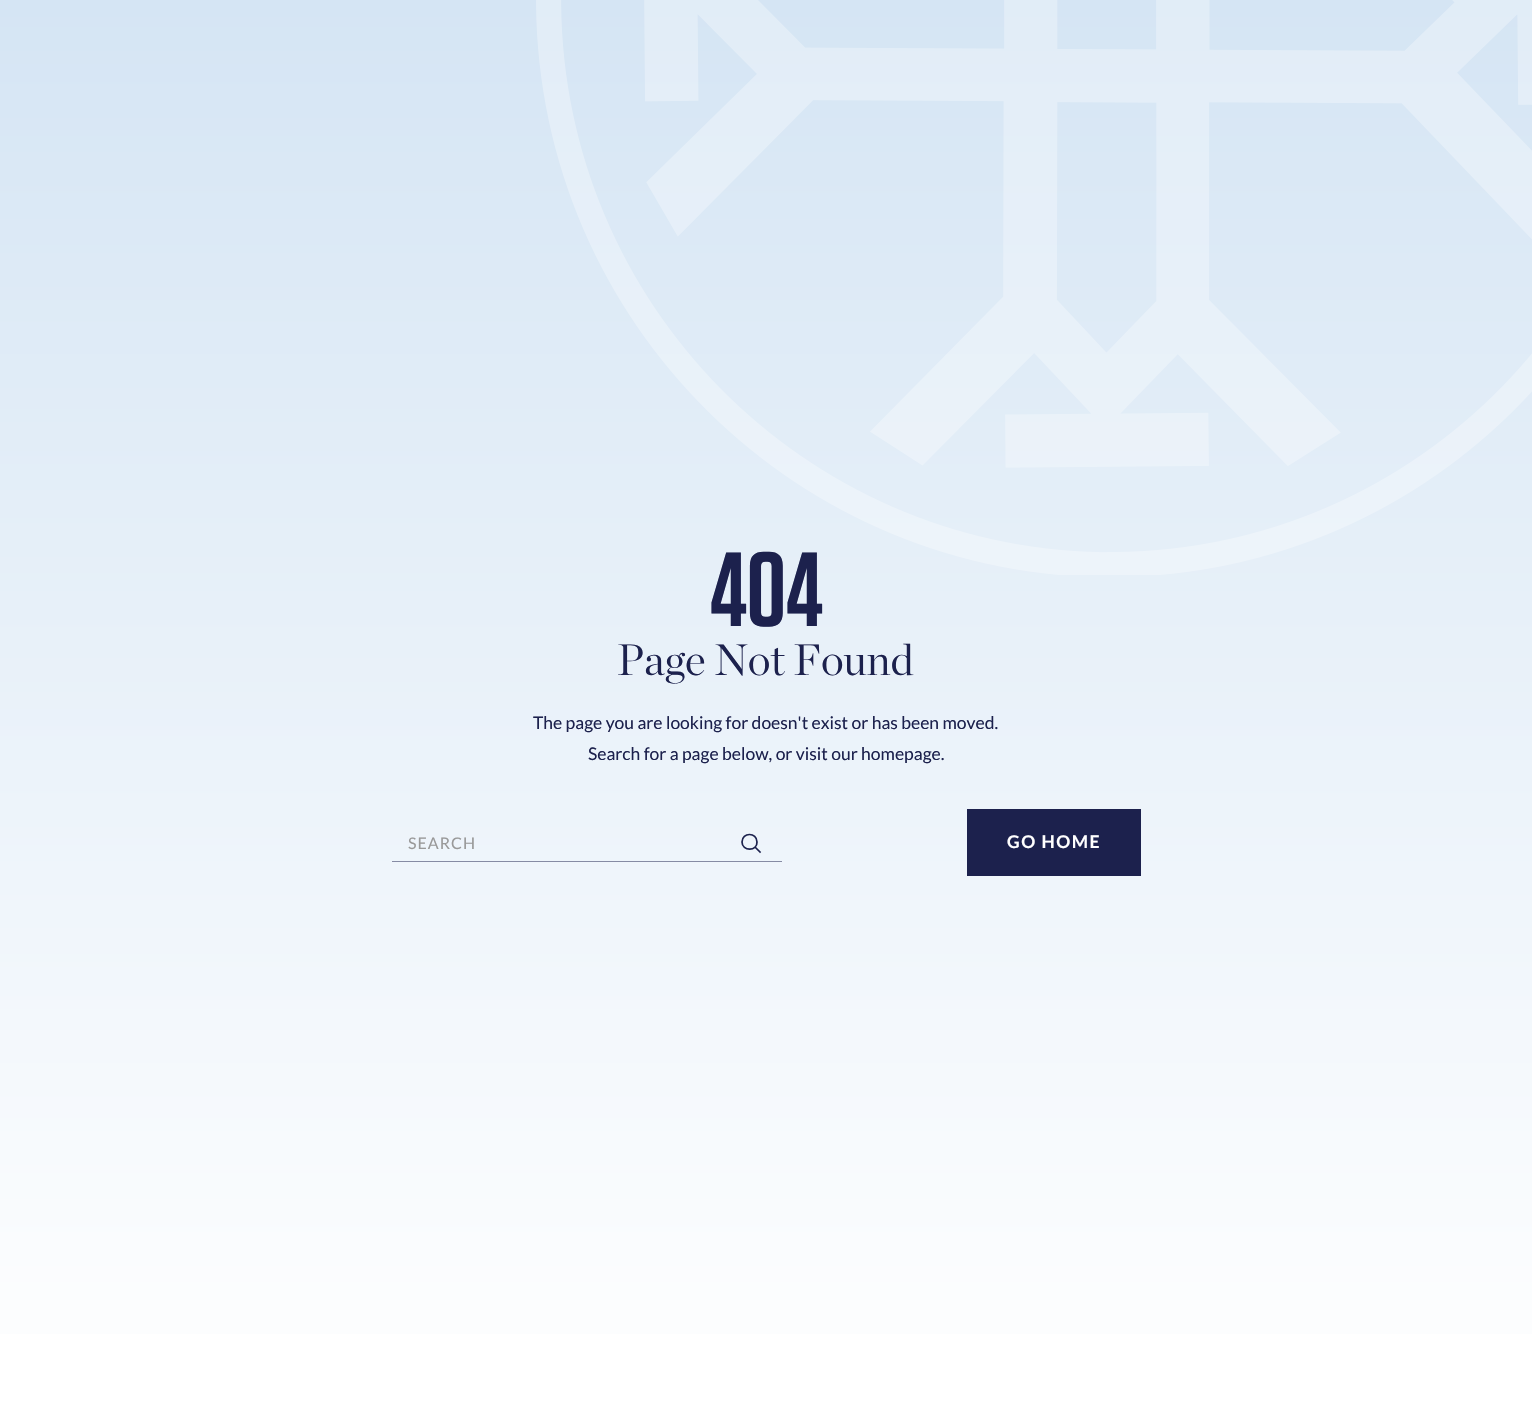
void draw(SkCanvas* canvas) {
    SkPaint paint;
    paint.setAntiAlias(true);
    auto face = [&](const char* family, int weight, float size, bool italic = false) {
        SkFontStyle style(weight, SkFontStyle::kNormal_Width,
            italic ? SkFontStyle::kItalic_Slant : SkFontStyle::kUpright_Slant);
        SkFont result(fontMgr->matchFamilyStyle(family, style), size);
        result.setSubpixel(true);
        return result;
    };
    auto write = [&](const char* s, float x, float y, const SkFont& font, SkColor color) {
        SkPaint ink(SkColor4f::FromColor(color));
        ink.setAntiAlias(true);
        canvas->drawString(s, x, y, font, ink);
    };
    auto writeSpaced = [&](const char* s, float x, float y, const SkFont& font, const SkPaint& ink, float letter, float word) {
        std::vector<SkGlyphID> glyphs(font.countText(s, strlen(s), SkTextEncoding::kUTF8));
        std::vector<float> xs(glyphs.size());
        font.textToGlyphs(s, strlen(s), SkTextEncoding::kUTF8, glyphs);
        font.getXPos(glyphs, xs, x);
        float extra = 0;
        for (size_t i = 0; i < glyphs.size(); i++) {
            xs[i] += extra;
            extra += letter + word * (glyphs[i] == font.unicharToGlyph(' '));
        }
        canvas->drawTextBlob(SkTextBlob::MakeFromPosHGlyphs(glyphs, xs, y, font), 0, 0, ink);
    };
    auto block = [&](float x, float y, float w, float h, SkColor color) {
        SkPaint ink(SkColor4f::FromColor(color));
        ink.setAntiAlias(true);
        canvas->drawRect(SkRect::MakeXYWH(x, y, w, h), ink);
    };
    auto paste = [&](const char* path, float x, float y, float w, float h) {
        auto image = SkImages::DeferredFromEncodedData(SkData::MakeFromFileName(path));
        canvas->drawImageRect(image, SkRect::MakeXYWH(x, y, w, h), SkSamplingOptions());
    };
    canvas->clear(SK_ColorWHITE);
    {
        const SkColor colors[] = {SkColorSetRGB(213, 229, 244), SK_ColorWHITE};
        const float stops[] = {0, 1};
        const SkPoint ends[] = {{766, 0}, {766, 1418}};
        paint.setShader(SkGradientShader::MakeLinear(ends, colors, stops, 2, SkTileMode::kClamp));
        paint.setAlpha(255);
    }
    canvas->drawRect(SkRect::MakeXYWH(0, 0, 1532, 1334), paint);
    paste("pic1.png", 536, 0, 996, 575);
    auto kFont1 = face("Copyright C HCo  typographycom", 400, 105);
    write("404", 710, 626, kFont1, SkColorSetRGB(28, 33, 77));
    auto kFont2 = face("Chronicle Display", 300, 43.75f);
    write("Page Not Found", 617, 675, kFont2, SkColorSetRGB(28, 33, 77));
    auto kFont3 = face("Lato", 400, 17.5f);
    write("The page you are looking for doesn't exist or has been moved.", 533, 729, kFont3, SkColorSetRGB(28, 33, 77));
    write("Search for a page below, or visit our homepage.", 588, 760, kFont3, SkColorSetRGB(28, 33, 77));
    block(392, 861, 390, 1, SkColorSetRGB(134, 139, 164));
    auto kFont4 = face("Lato", 400, 16);
    paint.setShader(nullptr);
    paint.setColor(SkColorSetRGB(153, 153, 153));
    writeSpaced("SEARCH", 408, 849, kFont4, paint, 1, 0);
    paint.setStyle(SkPaint::kStroke_Style);
    paint.setStrokeWidth(1.7f);
    paint.setStrokeCap(SkPaint::kSquare_Cap);
    paint.setStrokeJoin(SkPaint::kRound_Join);
    paint.setColor(SkColorSetRGB(28, 33, 77));
    canvas->drawPath(SkPathBuilder().moveTo(755.5f, 847.5f).lineTo(760, 852).moveTo(742, 842).cubicTo(742, 851.5f, 757.5f, 851.5f, 757, 842).cubicTo(757, 832, 742, 832, 742, 842).close().detach(), paint);
    block(967, 809, 174, 67, SkColorSetRGB(28, 33, 77));
    auto kFont5 = face("Lato", 700, 17.5f);
    paint.setStyle(SkPaint::kFill_Style);
    paint.setColor(SK_ColorWHITE);
    writeSpaced("GO HOME", 1007, 848, kFont5, paint, 1.5f, 0);
}
